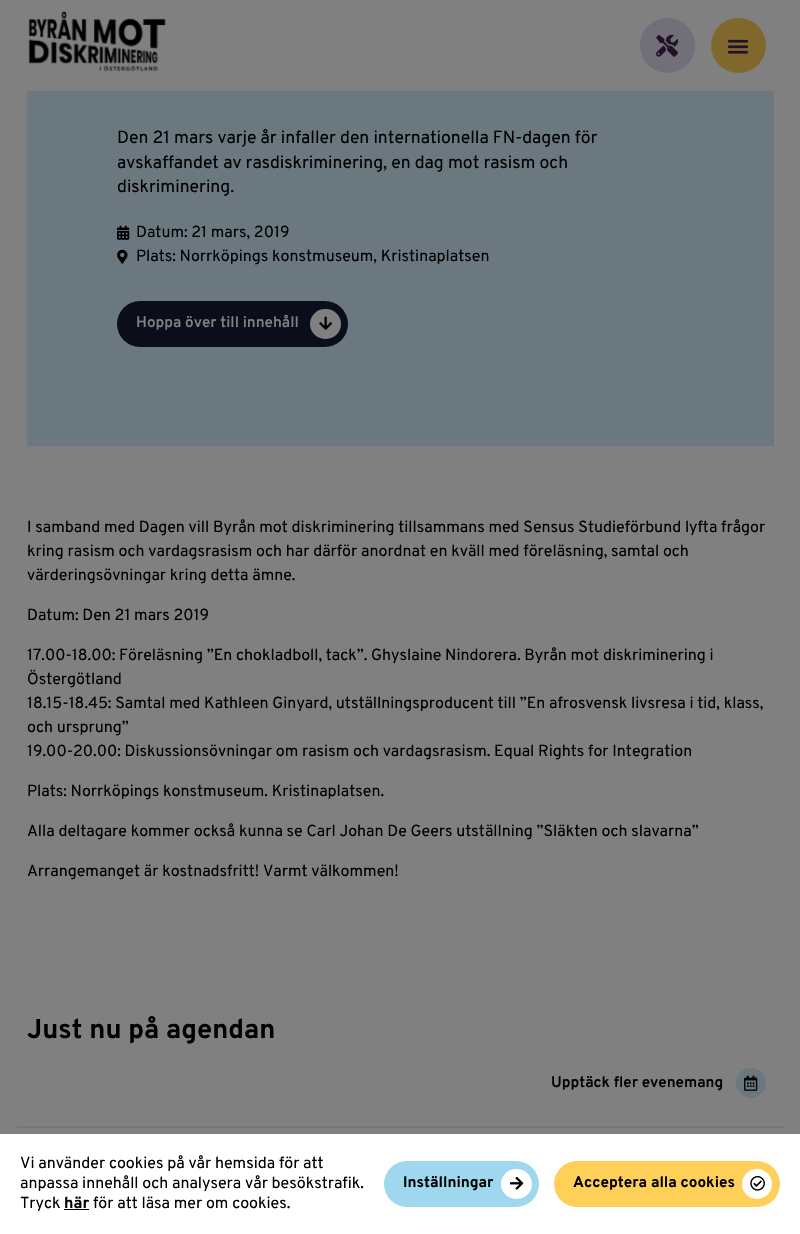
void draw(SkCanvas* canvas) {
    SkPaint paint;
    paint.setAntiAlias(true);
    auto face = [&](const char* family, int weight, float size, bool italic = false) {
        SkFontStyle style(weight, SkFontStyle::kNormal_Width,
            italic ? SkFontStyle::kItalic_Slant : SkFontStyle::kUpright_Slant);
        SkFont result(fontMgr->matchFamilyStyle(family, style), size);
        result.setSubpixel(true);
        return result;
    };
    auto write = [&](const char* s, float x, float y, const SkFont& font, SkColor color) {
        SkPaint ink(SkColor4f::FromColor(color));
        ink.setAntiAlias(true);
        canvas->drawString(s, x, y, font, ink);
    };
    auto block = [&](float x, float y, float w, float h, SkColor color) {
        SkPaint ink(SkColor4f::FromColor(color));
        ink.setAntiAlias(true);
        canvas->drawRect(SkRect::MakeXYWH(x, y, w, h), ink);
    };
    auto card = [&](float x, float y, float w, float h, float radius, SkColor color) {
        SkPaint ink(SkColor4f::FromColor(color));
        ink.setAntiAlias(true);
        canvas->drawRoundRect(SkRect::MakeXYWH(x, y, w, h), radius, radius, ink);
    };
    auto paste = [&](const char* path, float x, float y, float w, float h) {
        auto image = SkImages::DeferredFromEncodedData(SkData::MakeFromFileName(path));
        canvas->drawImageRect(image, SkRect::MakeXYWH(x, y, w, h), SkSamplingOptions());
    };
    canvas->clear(SkColorSetRGB(128, 128, 128));
    paste("pic1.png", 28, 11, 138, 61);
    paint.setColor(SkColorSetRGB(113, 112, 121));
    canvas->drawCircle(667.5f, 45.5f, 27.5f, paint);
    paste("pic2.png", 656, 34, 22, 23);
    paint.setColor(SkColorSetRGB(128, 104, 44));
    canvas->drawCircle(738.5f, 45.5f, 27.5f, paint);
    paste("pic3.png", 727, 39, 22, 15);
    block(27, 91, 747, 355, SkColorSetRGB(108, 120, 127));
    auto kFont1 = face("Overpass", 400, 17.6f);
    write("Den 21 mars varje år infaller den internationella FN-dagen för", 117, 143, kFont1, SK_ColorBLACK);
    write("avskaffandet av rasdiskriminering, en dag mot rasism och", 117, 168, kFont1, SK_ColorBLACK);
    write("diskriminering.", 117, 192, kFont1, SK_ColorBLACK);
    paste("pic4.png", 117, 225, 13, 15);
    auto kFont2 = face("Overpass", 400, 16);
    write("Datum: 21 mars, 2019", 136, 237, kFont2, SK_ColorBLACK);
    paste("pic5.png", 117, 249, 11, 15);
    write("Plats: Norrköpings konstmuseum, Kristinaplatsen", 136, 261, kFont2, SK_ColorBLACK);
    card(117, 301, 231, 46, 23, SkColorSetRGB(9, 14, 26));
    auto kFont3 = face("Overpass", 600, 15.25f);
    write("Hoppa över till innehåll", 136, 327, kFont3, SkColorSetRGB(128, 128, 128));
    card(310, 309, 31, 30, 15, SkColorSetRGB(128, 128, 128));
    paste("pic6.png", 319, 316, 14, 14);
    write("I samband med Dagen vill Byrån mot diskriminering tillsammans med Sensus Studieförbund lyfta frågor", 27, 532, kFont2, SK_ColorBLACK);
    write("kring rasism och vardagsrasism och har därför anordnat en kväll med föreläsning, samtal och", 27, 556, kFont2, SK_ColorBLACK);
    write("värderingsövningar kring detta ämne.", 27, 580, kFont2, SK_ColorBLACK);
    write("Datum: Den 21 mars 2019", 27, 620, kFont2, SK_ColorBLACK);
    write("17.00-18.00: Föreläsning ”En chokladboll, tack”. Ghyslaine Nindorera. Byrån mot diskriminering i", 27, 660, kFont2, SK_ColorBLACK);
    write("Östergötland", 27, 684, kFont2, SK_ColorBLACK);
    write("18.15-18.45: Samtal med Kathleen Ginyard, utställningsproducent till ”En afrosvensk livsresa i tid, klass,", 27, 708, kFont2, SK_ColorBLACK);
    write("och ursprung”", 27, 732, kFont2, SK_ColorBLACK);
    write("19.00-20.00: Diskussionsövningar om rasism och vardagsrasism. Equal Rights for Integration", 27, 756, kFont2, SK_ColorBLACK);
    write("Plats: Norrköpings konstmuseum. Kristinaplatsen.", 27, 796, kFont2, SK_ColorBLACK);
    write("Alla deltagare kommer också kunna se Carl Johan De Geers utställning ”Släkten och slavarna”", 27, 836, kFont2, SK_ColorBLACK);
    write("Arrangemanget är kostnadsfritt! Varmt välkommen!", 27, 876, kFont2, SK_ColorBLACK);
    block(17, 1126, 767, 2, SkColorSetRGB(108, 120, 127));
    auto kFont4 = face("Overpass", 700, 27.25f);
    write("Just nu på agendan", 27, 1038, kFont4, SK_ColorBLACK);
    write("Upptäck fler evenemang", 551, 1087, kFont3, SK_ColorBLACK);
    paint.setColor(SkColorSetRGB(108, 120, 127));
    canvas->drawCircle(751, 1083, 15, paint);
    paste("pic7.png", 744, 1075, 14, 16);
    block(0, 1134, 800, 100, SK_ColorWHITE);
    write("Vi använder cookies på vår hemsida för att", 20, 1168, kFont2, SK_ColorBLACK);
    write("anpassa innehåll och analysera vår besökstrafik.", 20, 1188, kFont2, SK_ColorBLACK);
    write("Tryck", 20, 1208, kFont2, SK_ColorBLACK);
    auto kFont5 = face("Overpass", 700, 16);
    write("här", 64, 1208, kFont5, SK_ColorBLACK);
    block(64, 1209, 25, 1, SK_ColorBLACK);
    write("för att läsa mer om cookies.", 93, 1208, kFont2, SK_ColorBLACK);
    card(384, 1161, 155, 46, 23, SkColorSetRGB(159, 215, 238));
    auto kFont6 = face("Overpass", 700, 15.25f);
    write("Inställningar", 403, 1187, kFont6, SK_ColorBLACK);
    card(501, 1169, 31, 30, 15, SK_ColorWHITE);
    paste("pic8.png", 510, 1176, 14, 14);
    card(554, 1161, 226, 46, 23, SkColorSetRGB(255, 208, 88));
    write("Acceptera alla cookies", 573, 1187, kFont6, SK_ColorBLACK);
    paint.setColor(SK_ColorWHITE);
    canvas->drawCircle(757, 1184, 15, paint);
    paste("pic9.png", 750, 1175, 15, 16);
}
